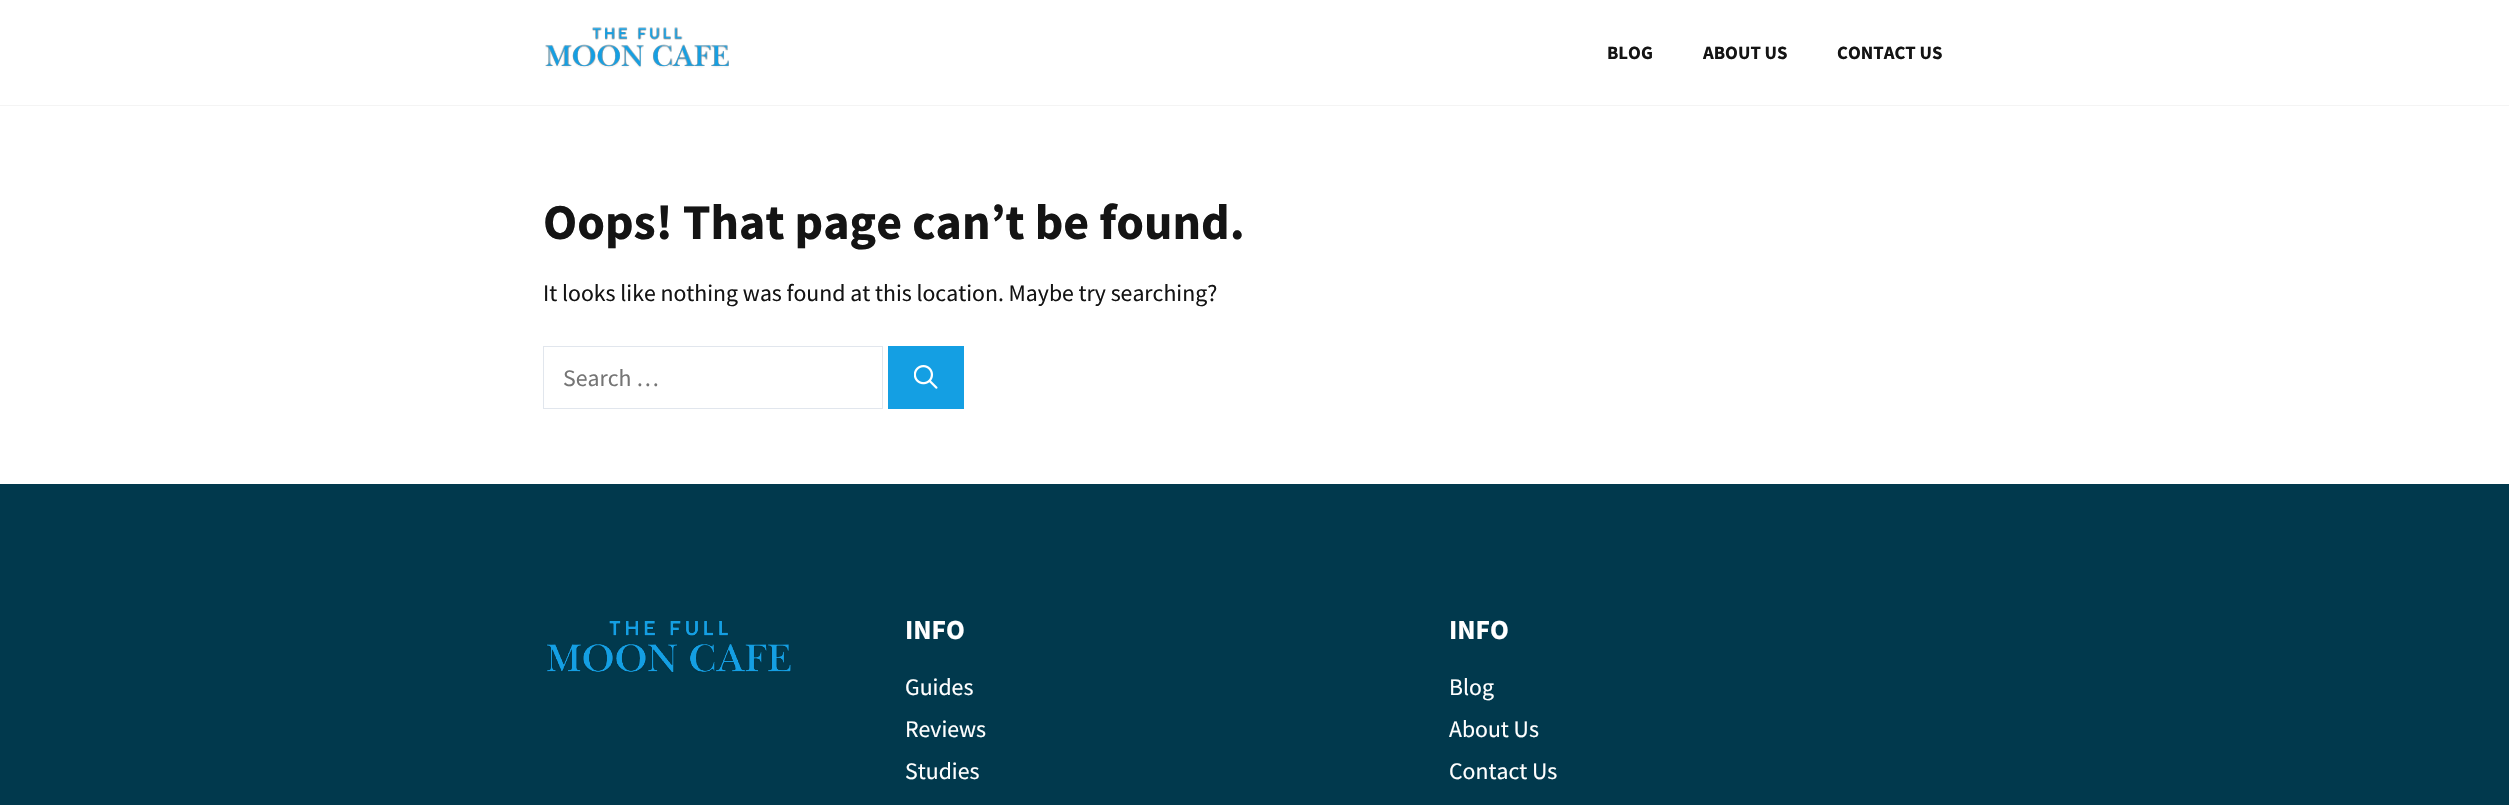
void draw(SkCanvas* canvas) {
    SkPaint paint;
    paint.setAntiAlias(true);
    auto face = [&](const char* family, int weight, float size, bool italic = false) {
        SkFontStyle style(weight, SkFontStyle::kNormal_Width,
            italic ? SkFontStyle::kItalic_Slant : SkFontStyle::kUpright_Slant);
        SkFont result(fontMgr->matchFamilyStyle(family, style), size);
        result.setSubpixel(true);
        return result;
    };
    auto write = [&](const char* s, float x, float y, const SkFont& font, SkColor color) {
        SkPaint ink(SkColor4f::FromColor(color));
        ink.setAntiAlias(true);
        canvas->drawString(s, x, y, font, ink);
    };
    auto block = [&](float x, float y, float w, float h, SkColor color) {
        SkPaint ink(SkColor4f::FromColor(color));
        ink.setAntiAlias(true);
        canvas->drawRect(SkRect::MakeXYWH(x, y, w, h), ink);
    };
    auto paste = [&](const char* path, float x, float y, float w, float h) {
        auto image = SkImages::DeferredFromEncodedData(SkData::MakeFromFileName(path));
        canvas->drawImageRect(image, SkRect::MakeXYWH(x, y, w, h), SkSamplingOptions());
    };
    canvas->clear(SK_ColorWHITE);
    block(0, 105, 2509, 1, SkColorSetRGB(244, 244, 244));
    paste("pic1.png", 545, 27, 184, 41);
    auto kFont1 = face("Source Sans Pro", 700, 18.75f);
    write("BLOG", 1607, 59, kFont1, SkColorSetRGB(20, 20, 20));
    write("ABOUT US", 1703, 59, kFont1, SkColorSetRGB(20, 20, 20));
    write("CONTACT US", 1837, 59, kFont1, SkColorSetRGB(20, 20, 20));
    auto kFont2 = face("Source Sans Pro", 700, 50);
    write("Oops! That page can’t be found.", 543, 239, kFont2, SkColorSetRGB(20, 20, 20));
    auto kFont3 = face("Source Sans Pro", 400, 23.75f);
    write("It looks like nothing was found at this location. Maybe try searching?", 543, 301, kFont3, SkColorSetRGB(20, 20, 20));
    paint.setStyle(SkPaint::kStroke_Style);
    paint.setStrokeWidth(1);
    paint.setColor(SkColorSetRGB(225, 230, 237));
    canvas->drawRect(SkRect::MakeXYWH(543.5f, 346.5f, 339, 62), paint);
    write("Search …", 563, 386, kFont3, SkColorSetRGB(117, 117, 117));
    block(888, 346, 76, 63, SkColorSetRGB(20, 159, 227));
    paste("pic2.png", 914, 365, 24, 24);
    block(0, 484, 2509, 321, SkColorSetRGB(1, 57, 77));
    paste("pic3.png", 546, 621, 245, 52);
    auto kFont4 = face("Source Sans Pro", 700, 27.5f);
    write("INFO", 905, 639, kFont4, SK_ColorWHITE);
    write("Guides", 905, 695, kFont3, SK_ColorWHITE);
    write("Reviews", 905, 737, kFont3, SK_ColorWHITE);
    write("Studies", 905, 779, kFont3, SK_ColorWHITE);
    write("INFO", 1449, 639, kFont4, SK_ColorWHITE);
    write("Blog", 1449, 695, kFont3, SK_ColorWHITE);
    write("About Us", 1449, 737, kFont3, SK_ColorWHITE);
    write("Contact Us", 1449, 779, kFont3, SK_ColorWHITE);
}
